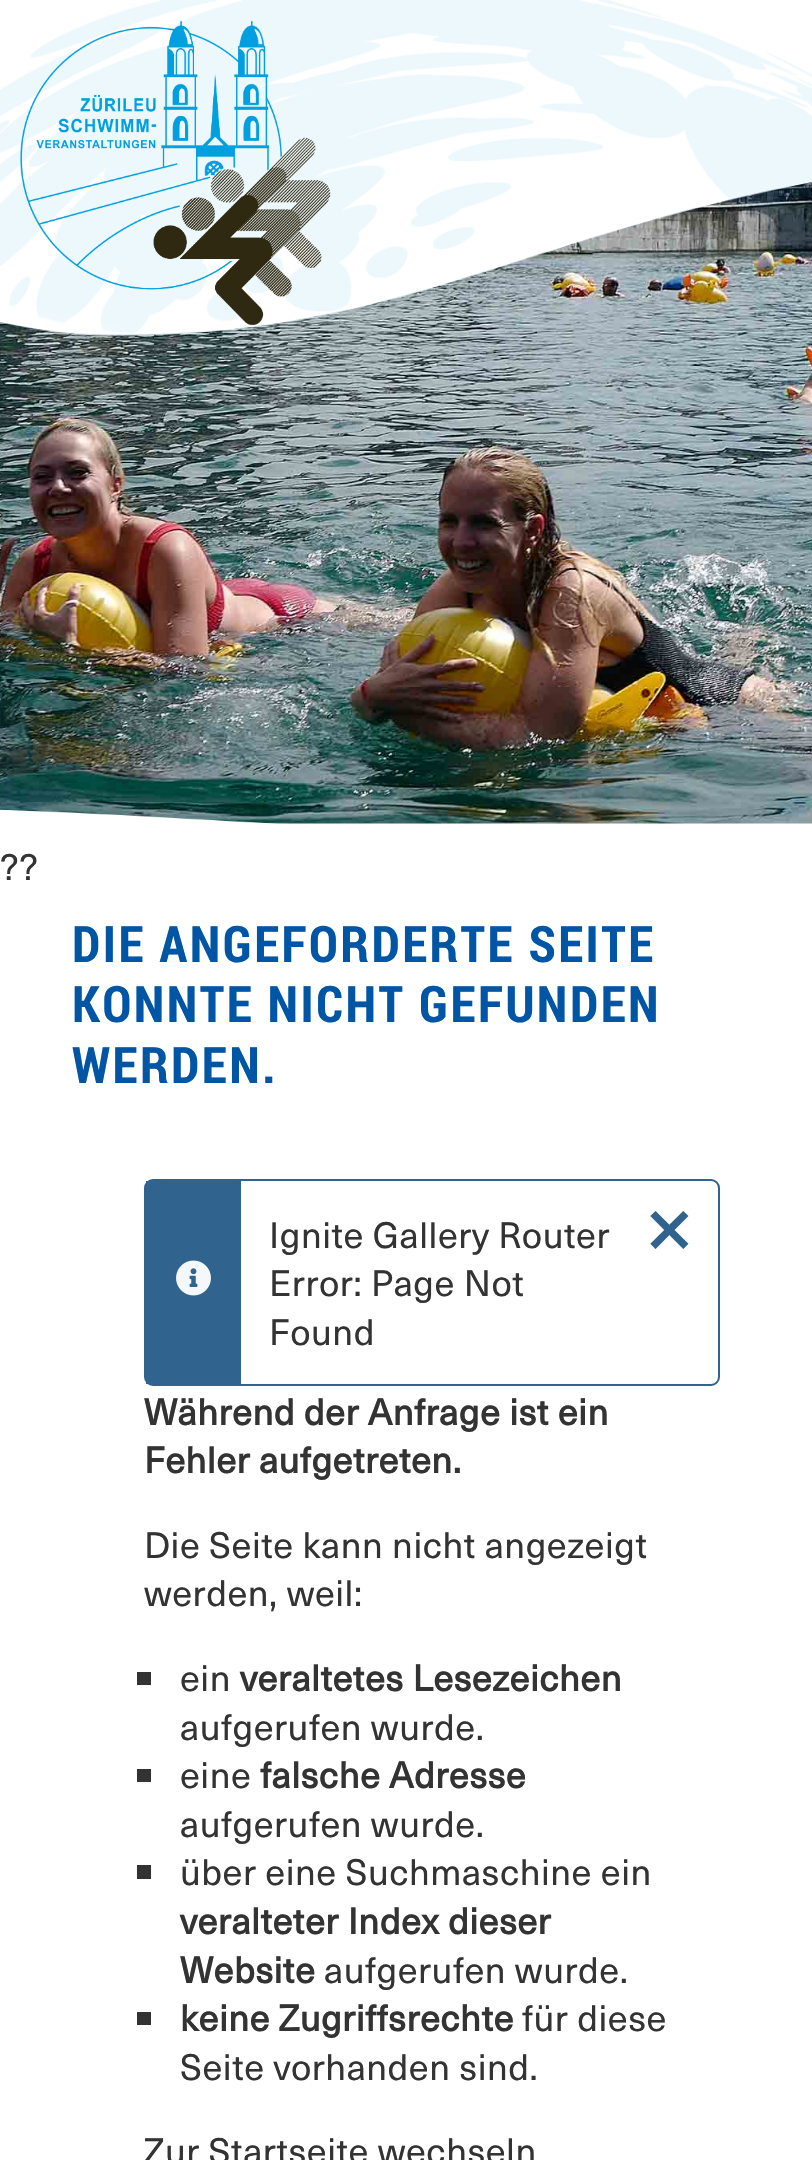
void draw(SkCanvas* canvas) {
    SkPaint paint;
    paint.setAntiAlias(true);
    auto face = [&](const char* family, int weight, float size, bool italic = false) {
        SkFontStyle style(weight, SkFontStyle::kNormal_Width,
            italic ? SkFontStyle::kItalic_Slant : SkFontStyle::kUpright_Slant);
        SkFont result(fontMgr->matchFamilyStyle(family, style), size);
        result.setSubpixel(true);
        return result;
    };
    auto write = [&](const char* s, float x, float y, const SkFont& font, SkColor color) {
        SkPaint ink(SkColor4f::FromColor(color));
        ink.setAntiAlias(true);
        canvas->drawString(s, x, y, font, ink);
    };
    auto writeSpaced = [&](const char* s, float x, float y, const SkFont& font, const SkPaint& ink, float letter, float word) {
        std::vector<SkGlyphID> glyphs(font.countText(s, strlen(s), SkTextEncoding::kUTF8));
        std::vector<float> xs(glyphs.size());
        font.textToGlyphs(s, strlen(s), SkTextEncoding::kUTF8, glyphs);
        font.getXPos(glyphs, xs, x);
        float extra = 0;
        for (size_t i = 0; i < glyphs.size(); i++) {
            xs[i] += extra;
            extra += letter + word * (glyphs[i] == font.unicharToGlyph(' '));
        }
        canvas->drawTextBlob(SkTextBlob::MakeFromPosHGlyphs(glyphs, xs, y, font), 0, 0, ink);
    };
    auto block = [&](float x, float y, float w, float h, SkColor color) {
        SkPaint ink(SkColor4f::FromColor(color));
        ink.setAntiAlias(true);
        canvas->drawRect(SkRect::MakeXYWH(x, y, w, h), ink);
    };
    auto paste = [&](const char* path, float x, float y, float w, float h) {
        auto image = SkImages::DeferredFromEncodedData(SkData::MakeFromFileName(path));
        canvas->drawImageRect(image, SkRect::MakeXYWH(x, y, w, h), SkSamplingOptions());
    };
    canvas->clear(SK_ColorWHITE);
    paste("pic3.png", 0, 181, 812, 643);
    paste("pic1.png", 0, 0, 812, 336);
    paste("pic2.png", 20, 20, 311, 306);
    paste("pic4.png", 0, 809, 289, 15);
    auto kFont1 = face("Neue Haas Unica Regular", 400, 36);
    paint.setColor(SkColorSetRGB(51, 51, 51));
    writeSpaced("?\077", 0, 880, kFont1, paint, 0.55f, 0);
    auto kFont2 = face("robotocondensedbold", 700, 50.4f);
    paint.setColor(SkColorSetRGB(0, 85, 164));
    writeSpaced("DIE ANGEFORDERTE SEITE", 72, 962, kFont2, paint, 2.5f, 0);
    writeSpaced("KONNTE NICHT GEFUNDEN", 72, 1022, kFont2, paint, 2.5f, 0);
    writeSpaced("WERDEN.", 72, 1083, kFont2, paint, 2.5f, 0);
    paint.setStyle(SkPaint::kStroke_Style);
    paint.setStrokeWidth(2);
    paint.setColor(SkColorSetRGB(48, 99, 141));
    canvas->drawRoundRect(SkRect::MakeXYWH(145, 1180, 574, 205), 8, 8, paint);
    block(146, 1181, 95, 203, SkColorSetRGB(48, 99, 141));
    paste("pic5.png", 176, 1260, 35, 36);
    paint.setStyle(SkPaint::kFill_Style);
    paint.setColor(SkColorSetRGB(51, 51, 51));
    writeSpaced("Ignite Gallery Router", 269, 1248, kFont1, paint, 0.55f, 0);
    writeSpaced("Error: Page Not", 269, 1296, kFont1, paint, 0.55f, 0);
    writeSpaced("Found", 269, 1345, kFont1, paint, 0.55f, 0);
    auto kFont3 = face("Neue Haas Unica Regular", 700, 72);
    write("×", 648, 1253, kFont3, SkColorSetRGB(48, 99, 141));
    auto kFont4 = face("Neue Haas Unica Regular", 700, 36);
    writeSpaced("Während der Anfrage ist ein", 144, 1425, kFont4, paint, 0.55f, 0);
    writeSpaced("Fehler aufgetreten.", 144, 1473, kFont4, paint, 0.55f, 0);
    writeSpaced("Die Seite kann nicht angezeigt", 144, 1558, kFont1, paint, 0.55f, 0);
    writeSpaced("werden, weil:", 144, 1606, kFont1, paint, 0.55f, 0);
    block(137, 1672, 14, 13, SkColorSetRGB(51, 51, 51));
    writeSpaced("ein", 180, 1691, kFont1, paint, 0.55f, 0);
    writeSpaced("veraltetes Lesezeichen", 240, 1691, kFont4, paint, 0.55f, 0);
    writeSpaced("aufgerufen wurde.", 180, 1740, kFont1, paint, 0.55f, 0);
    block(137, 1769, 14, 13, SkColorSetRGB(51, 51, 51));
    writeSpaced("eine", 180, 1788, kFont1, paint, 0.55f, 0);
    writeSpaced("falsche Adresse", 260, 1788, kFont4, paint, 0.55f, 0);
    writeSpaced("aufgerufen wurde.", 180, 1837, kFont1, paint, 0.55f, 0);
    block(137, 1865, 14, 14, SkColorSetRGB(51, 51, 51));
    writeSpaced("über eine Suchmaschine ein", 180, 1885, kFont1, paint, 0.55f, 0);
    writeSpaced("veralteter Index dieser", 180, 1934, kFont4, paint, 0.55f, 0);
    writeSpaced("Website", 180, 1983, kFont4, paint, 0.55f, 0);
    writeSpaced("aufgerufen wurde.", 324, 1983, kFont1, paint, 0.55f, 0);
    block(137, 2012, 14, 13, SkColorSetRGB(51, 51, 51));
    writeSpaced("keine Zugriffsrechte", 180, 2031, kFont4, paint, 0.55f, 0);
    writeSpaced("für diese", 522, 2031, kFont1, paint, 0.55f, 0);
    writeSpaced("Seite vorhanden sind.", 180, 2080, kFont1, paint, 0.55f, 0);
    writeSpaced("Zur Startseite wechseln", 144, 2164, kFont1, paint, 0.55f, 0);
}
